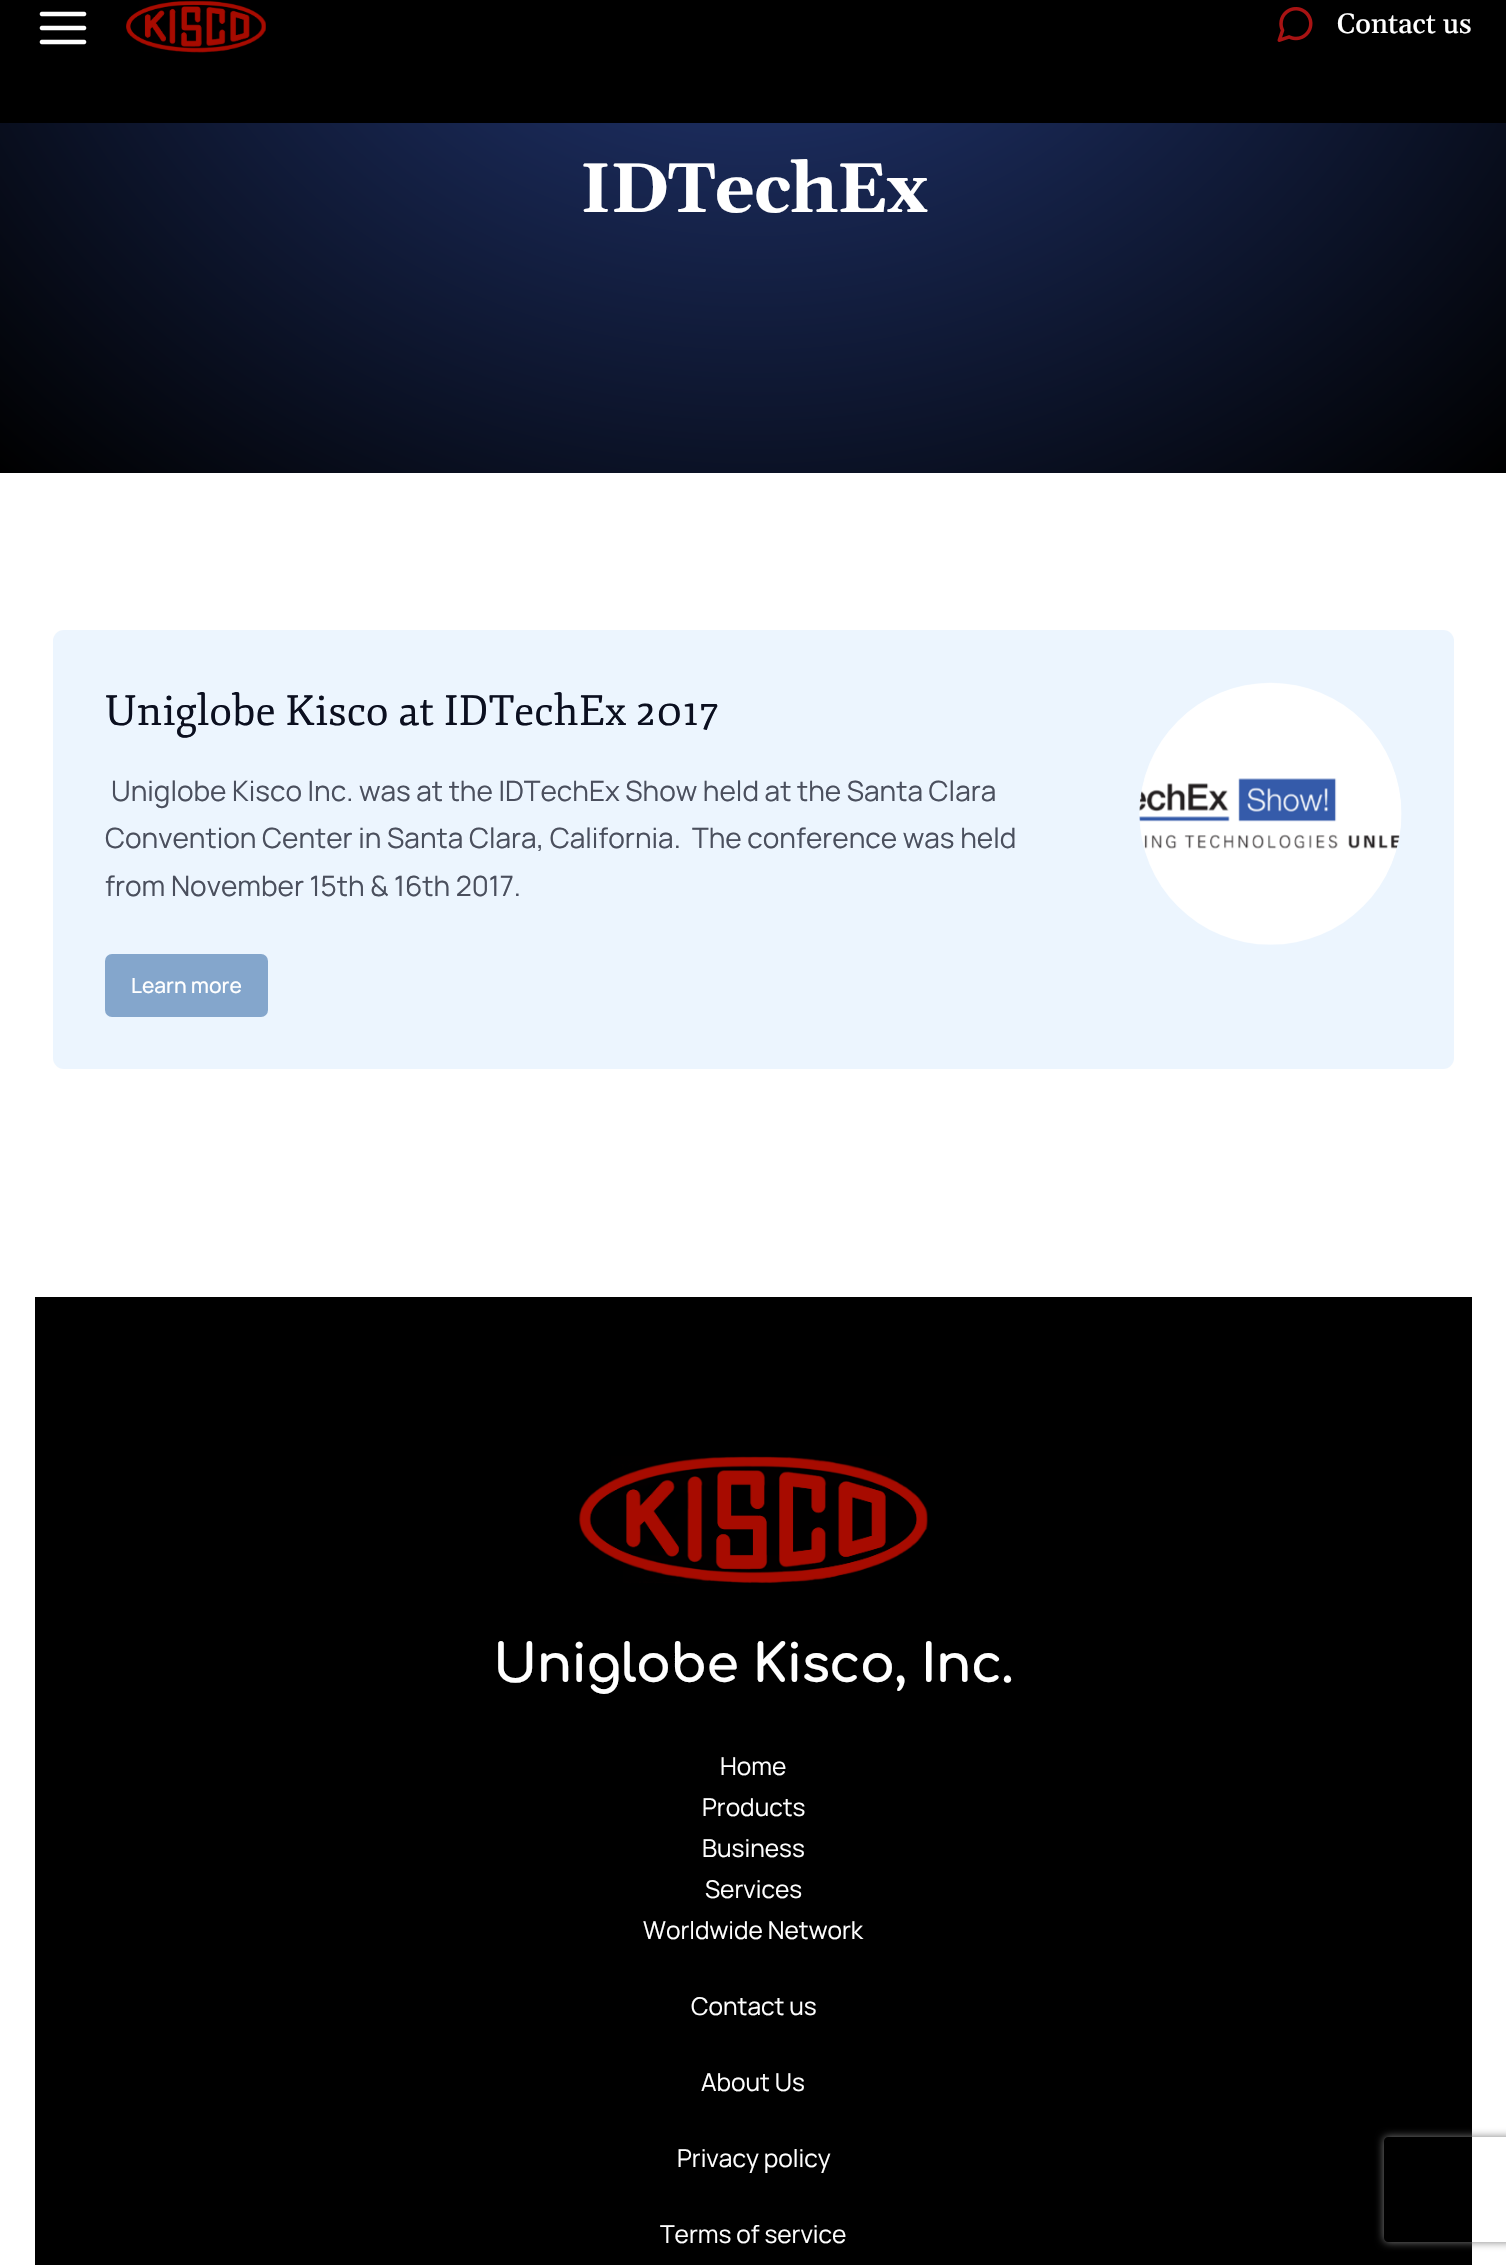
void draw(SkCanvas* canvas) {
    SkPaint paint;
    paint.setAntiAlias(true);
    auto face = [&](const char* family, int weight, float size, bool italic = false) {
        SkFontStyle style(weight, SkFontStyle::kNormal_Width,
            italic ? SkFontStyle::kItalic_Slant : SkFontStyle::kUpright_Slant);
        SkFont result(fontMgr->matchFamilyStyle(family, style), size);
        result.setSubpixel(true);
        return result;
    };
    auto write = [&](const char* s, float x, float y, const SkFont& font, SkColor color) {
        SkPaint ink(SkColor4f::FromColor(color));
        ink.setAntiAlias(true);
        canvas->drawString(s, x, y, font, ink);
    };
    auto writeSpaced = [&](const char* s, float x, float y, const SkFont& font, const SkPaint& ink, float letter, float word) {
        std::vector<SkGlyphID> glyphs(font.countText(s, strlen(s), SkTextEncoding::kUTF8));
        std::vector<float> xs(glyphs.size());
        font.textToGlyphs(s, strlen(s), SkTextEncoding::kUTF8, glyphs);
        font.getXPos(glyphs, xs, x);
        float extra = 0;
        for (size_t i = 0; i < glyphs.size(); i++) {
            xs[i] += extra;
            extra += letter + word * (glyphs[i] == font.unicharToGlyph(' '));
        }
        canvas->drawTextBlob(SkTextBlob::MakeFromPosHGlyphs(glyphs, xs, y, font), 0, 0, ink);
    };
    auto block = [&](float x, float y, float w, float h, SkColor color) {
        SkPaint ink(SkColor4f::FromColor(color));
        ink.setAntiAlias(true);
        canvas->drawRect(SkRect::MakeXYWH(x, y, w, h), ink);
    };
    auto card = [&](float x, float y, float w, float h, float radius, SkColor color) {
        SkPaint ink(SkColor4f::FromColor(color));
        ink.setAntiAlias(true);
        canvas->drawRoundRect(SkRect::MakeXYWH(x, y, w, h), radius, radius, ink);
    };
    auto paste = [&](const char* path, float x, float y, float w, float h) {
        auto image = SkImages::DeferredFromEncodedData(SkData::MakeFromFileName(path));
        canvas->drawImageRect(image, SkRect::MakeXYWH(x, y, w, h), SkSamplingOptions());
    };
    canvas->clear(SK_ColorWHITE);
    block(0, 0, 1506, 123, SK_ColorBLACK);
    paste("pic1.png", 39, 11, 48, 34);
    paste("pic2.png", 126, 0, 140, 53);
    paste("pic3.png", 1277, 7, 36, 35);
    auto kFont1 = face("Gelasio", 500, 28);
    write("Contact us", 1337, 33, kFont1, SK_ColorWHITE);
    {
        const SkColor colors[] = {SkColorSetRGB(38, 61, 129), SK_ColorBLACK};
        const float stops[] = {0, 1};
        SkMatrix m = SkMatrix::Translate(753, -140).preScale(1065, 866);
        paint.setShader(SkGradientShader::MakeRadial({0, 0}, 1, colors, stops, 2, SkTileMode::kClamp, 0, &m));
        paint.setAlpha(255);
    }
    canvas->drawRect(SkRect::MakeXYWH(0, 123, 1506, 350), paint);
    auto kFont2 = face("Gelasio", 700, 70);
    paint.setShader(nullptr);
    paint.setColor(SK_ColorWHITE);
    writeSpaced("IDTechEx", 580, 212, kFont2, paint, -0.9f, 0);
    card(53, 630, 1401, 439, 11, SkColorSetRGB(236, 245, 254));
    auto kFont3 = face("Fjord", 400, 42);
    write("Uniglobe Kisco at IDTechEx 2017", 105, 725, kFont3, SkColorSetRGB(11, 15, 31));
    auto kFont4 = face("Manrope", 400, 28);
    write("Uniglobe Kisco Inc. was at the IDTechEx Show held at the Santa Clara", 111, 801, kFont4, SkColorSetRGB(74, 79, 93));
    write("Convention Center in Santa Clara, California.  The conference was held", 105, 848, kFont4, SkColorSetRGB(74, 79, 93));
    write("from November 15th & 16th 2017.", 105, 896, kFont4, SkColorSetRGB(74, 79, 93));
    card(105, 954, 163, 63, 7, SkColorSetRGB(132, 166, 204));
    auto kFont5 = face("Manrope", 500, 21);
    write("Learn more", 131, 993, kFont5, SK_ColorWHITE);
    paste("pic4.png", 1139, 682, 263, 263);
    block(35, 1297, 1437, 968, SK_ColorBLACK);
    paste("pic5.png", 579, 1456, 349, 128);
    auto kFont6 = face("Comfortaa", 700, 52.5f);
    writeSpaced("Uniglobe Kisco, Inc.", 493, 1682, kFont6, paint, -0.9f, 0);
    auto kFont7 = face("Manrope", 400, 24.5f);
    write("Home", 720, 1775, kFont7, SK_ColorWHITE);
    write("Products", 702, 1816, kFont7, SK_ColorWHITE);
    write("Business", 702, 1857, kFont7, SK_ColorWHITE);
    write("Services", 705, 1898, kFont7, SK_ColorWHITE);
    write("Worldwide Network", 643, 1939, kFont7, SK_ColorWHITE);
    write("Contact us", 691, 2015, kFont7, SK_ColorWHITE);
    write("About Us", 701, 2091, kFont7, SK_ColorWHITE);
    write("Privacy policy", 677, 2167, kFont7, SK_ColorWHITE);
    write("Terms of service", 660, 2243, kFont7, SK_ColorWHITE);
    canvas->save();
    canvas->clipPath(SkPathBuilder(SkPathFillType::kEvenOdd).moveTo(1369, 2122).lineTo(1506, 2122).lineTo(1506, 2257).lineTo(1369, 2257).close().moveTo(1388, 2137).lineTo(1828, 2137).cubicTo(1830, 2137, 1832, 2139, 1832, 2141).lineTo(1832, 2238).cubicTo(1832, 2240, 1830, 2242, 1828, 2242).lineTo(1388, 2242).cubicTo(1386, 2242, 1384, 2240, 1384, 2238).lineTo(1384, 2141).cubicTo(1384, 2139, 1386, 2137, 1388, 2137).close().detach(), true);
    paint.setColor(SkColorSetRGB(128, 128, 128));
    paint.setMaskFilter(SkMaskFilter::MakeBlur(kNormal_SkBlurStyle, 4.5f));
    canvas->drawRoundRect(SkRect::MakeXYWH(1384, 2137, 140, 105), 4, 4, paint);
    paint.setMaskFilter(nullptr);
    canvas->restore();
}
